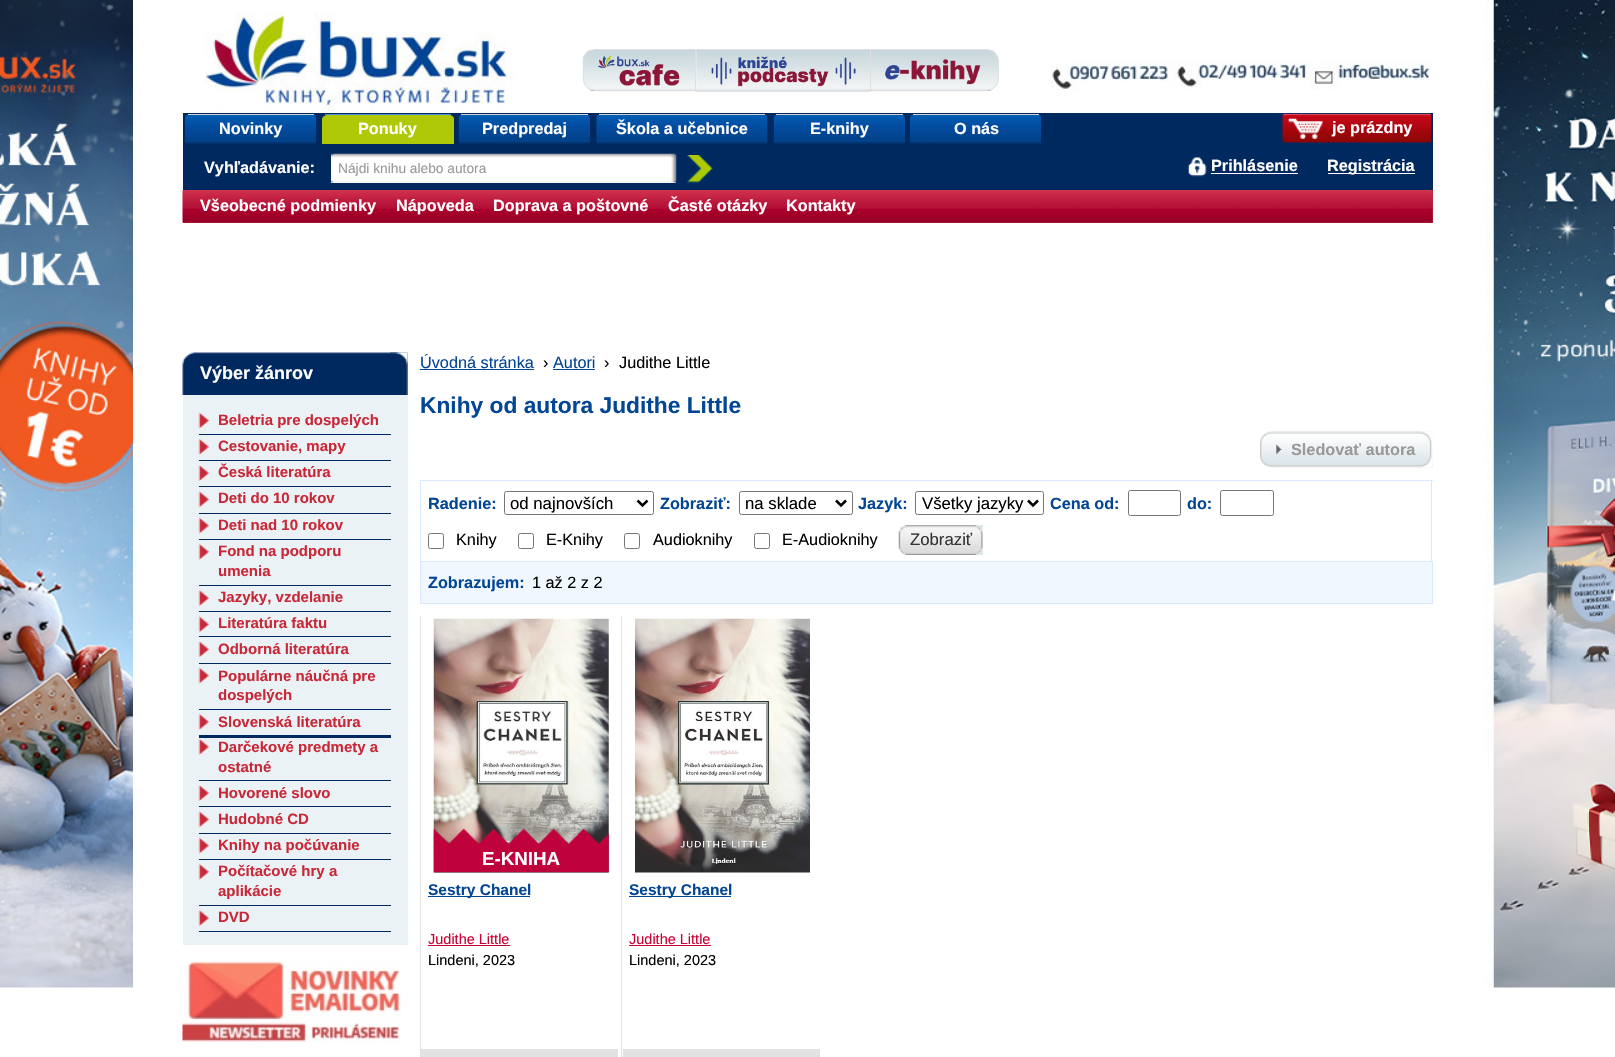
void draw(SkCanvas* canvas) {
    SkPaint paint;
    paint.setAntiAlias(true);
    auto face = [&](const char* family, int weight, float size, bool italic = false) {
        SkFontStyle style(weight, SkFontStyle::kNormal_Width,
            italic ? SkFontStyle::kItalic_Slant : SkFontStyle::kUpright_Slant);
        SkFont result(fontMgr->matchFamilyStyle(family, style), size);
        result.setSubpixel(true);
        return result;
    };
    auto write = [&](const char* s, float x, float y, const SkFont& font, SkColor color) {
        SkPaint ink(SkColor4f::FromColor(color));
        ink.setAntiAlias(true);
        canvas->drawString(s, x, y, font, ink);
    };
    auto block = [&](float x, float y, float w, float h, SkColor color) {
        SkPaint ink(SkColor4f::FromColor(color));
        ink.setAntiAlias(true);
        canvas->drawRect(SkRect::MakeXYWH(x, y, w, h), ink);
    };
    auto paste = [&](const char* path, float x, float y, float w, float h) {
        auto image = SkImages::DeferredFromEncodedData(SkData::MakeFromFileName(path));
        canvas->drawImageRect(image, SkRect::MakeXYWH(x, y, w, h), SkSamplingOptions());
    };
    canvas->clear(SK_ColorWHITE);
    paste("pic1.png", 0, 0, 1615, 988);
    block(133, 0, 2, 988, SK_ColorWHITE);
    paste("pic2.png", 195, 12, 320, 100);
    paste("pic3.png", 582, 50, 115, 42);
    paint.setStyle(SkPaint::kStroke_Style);
    paint.setStrokeWidth(1);
    paint.setColor(SkColorSetRGB(223, 223, 223));
    canvas->drawPath(SkPathBuilder().moveTo(596, 49.5f).lineTo(695.5f, 49.5f).lineTo(695.5f, 90.5f).lineTo(596, 90.5f).cubicTo(589, 90.5f, 583.5f, 85, 583.5f, 78).lineTo(583.5f, 62).cubicTo(583.5f, 55, 589, 49.5f, 596, 49.5f).close().detach(), paint);
    paste("pic4.png", 597, 55, 83, 31);
    paste("pic5.png", 696, 50, 174, 42);
    block(696, 49, 174, 1, SkColorSetRGB(223, 223, 223));
    block(696, 90, 174, 1, SkColorSetRGB(223, 223, 223));
    paste("pic6.png", 711, 56, 145, 31);
    paste("pic7.png", 870, 50, 129, 42);
    canvas->drawPath(SkPathBuilder().moveTo(870.5f, 49.5f).lineTo(986, 49.5f).cubicTo(993, 49.5f, 998.5f, 55, 998.5f, 62).lineTo(998.5f, 78).cubicTo(998.5f, 85, 993, 90.5f, 986, 90.5f).lineTo(870.5f, 90.5f).close().detach(), paint);
    paste("pic8.png", 885, 58, 96, 27);
    paste("pic9.png", 1050, 60, 380, 30);
    block(183, 113, 1250, 77, SkColorSetRGB(0, 41, 96));
    paste("pic10.png", 185, 115, 132, 29);
    block(188, 114, 126, 1, SkColorSetRGB(209, 209, 209));
    auto kFont1 = face("Liberation Sans", 700, 16.25f);
    write("Novinky", 219, 134, kFont1, SK_ColorWHITE);
    paint.setStyle(SkPaint::kFill_Style);
    paint.setColor(SkColorSetRGB(175, 201, 6));
    canvas->drawPath(SkPathBuilder().moveTo(328, 115).lineTo(449, 115).cubicTo(452, 115, 454, 117, 454, 119).lineTo(454, 144).lineTo(322, 144).lineTo(322, 119).cubicTo(322, 117, 325, 115, 328, 115).close().detach(), paint);
    block(325, 114, 126, 1, SkColorSetRGB(76, 138, 213));
    write("Ponuky", 358, 134, kFont1, SK_ColorWHITE);
    paste("pic11.png", 458, 115, 132, 29);
    block(461, 114, 127, 1, SkColorSetRGB(209, 209, 209));
    write("Predpredaj", 482, 134, kFont1, SK_ColorWHITE);
    paste("pic12.png", 596, 115, 172, 29);
    block(599, 114, 166, 1, SkColorSetRGB(209, 209, 209));
    write("Škola a učebnice", 616, 134, kFont1, SK_ColorWHITE);
    paste("pic13.png", 773, 115, 132, 29);
    block(776, 114, 127, 1, SkColorSetRGB(209, 209, 209));
    write("E-knihy", 810, 134, kFont1, SK_ColorWHITE);
    paste("pic14.png", 910, 115, 132, 29);
    block(913, 114, 126, 1, SkColorSetRGB(209, 209, 209));
    write("O nás", 954, 134, kFont1, SK_ColorWHITE);
    write("Vyhľadávanie:", 204, 173, kFont1, SK_ColorWHITE);
    block(331, 154, 345, 29, SK_ColorWHITE);
    paste("pic15.png", 331, 153, 346, 30);
    auto kFont2 = face("Liberation Sans", 400, 13.75f);
    write("Nájdi knihu alebo autora", 338, 173, kFont2, SkColorSetRGB(153, 153, 153));
    paste("pic16.png", 687, 155, 26, 28);
    paste("pic17.png", 1282, 113, 150, 30);
    paste("pic18.png", 1282, 113, 150, 30);
    paste("pic19.png", 1288, 118, 35, 21);
    write("je prázdny", 1332, 133, kFont1, SK_ColorWHITE);
    paste("pic20.png", 1188, 157, 19, 20);
    write("Prihlásenie", 1211, 171, kFont1, SK_ColorWHITE);
    block(1211, 173, 87, 1, SK_ColorWHITE);
    block(1328, 173, 87, 1, SK_ColorWHITE);
    write("Registrácia", 1327, 171, kFont1, SK_ColorWHITE);
    block(183, 190, 1250, 33, SkColorSetRGB(194, 33, 65));
    paste("pic21.png", 182, 190, 1251, 33);
    write("Všeobecné podmienky", 200, 211, kFont1, SK_ColorWHITE);
    write("Nápoveda", 396, 211, kFont1, SK_ColorWHITE);
    write("Doprava a poštovné", 493, 211, kFont1, SK_ColorWHITE);
    write("Časté otázky", 668, 211, kFont1, SK_ColorWHITE);
    write("Kontakty", 786, 211, kFont1, SK_ColorWHITE);
    paste("pic22.png", 182, 352, 226, 43);
    paste("pic23.png", 390, 352, 18, 43);
    auto kFont3 = face("Liberation Sans", 700, 18);
    write("Výber žánrov", 200, 379, kFont3, SK_ColorWHITE);
    block(183, 395, 225, 550, SkColorSetRGB(235, 242, 245));
    block(199, 434, 192, 1, SkColorSetRGB(0, 40, 97));
    paste("pic24.png", 198, 412, 11, 17);
    auto kFont4 = face("Liberation Sans", 700, 15);
    write("Beletria pre dospelých", 218, 425, kFont4, SkColorSetRGB(200, 40, 56));
    block(199, 460, 192, 1, SkColorSetRGB(0, 40, 97));
    paste("pic25.png", 198, 438, 11, 17);
    write("Cestovanie, mapy", 218, 451, kFont4, SkColorSetRGB(200, 40, 56));
    block(199, 486, 192, 1, SkColorSetRGB(0, 40, 97));
    paste("pic26.png", 198, 465, 11, 17);
    write("Česká literatúra", 218, 477, kFont4, SkColorSetRGB(200, 40, 56));
    block(199, 513, 192, 1, SkColorSetRGB(0, 40, 97));
    paste("pic27.png", 198, 491, 11, 17);
    write("Deti do 10 rokov", 218, 503, kFont4, SkColorSetRGB(200, 40, 56));
    block(199, 539, 192, 1, SkColorSetRGB(0, 40, 97));
    paste("pic24.png", 198, 517, 11, 17);
    write("Deti nad 10 rokov", 218, 530, kFont4, SkColorSetRGB(200, 40, 56));
    block(199, 585, 192, 1, SkColorSetRGB(0, 40, 97));
    paste("pic25.png", 198, 543, 11, 17);
    write("Fond na podporu", 218, 556, kFont4, SkColorSetRGB(200, 40, 56));
    write("umenia", 218, 576, kFont4, SkColorSetRGB(200, 40, 56));
    block(199, 611, 192, 1, SkColorSetRGB(0, 40, 97));
    paste("pic26.png", 198, 590, 11, 17);
    write("Jazyky, vzdelanie", 218, 602, kFont4, SkColorSetRGB(200, 40, 56));
    block(199, 636, 192, 1, SkColorSetRGB(0, 40, 97));
    paste("pic27.png", 198, 616, 11, 17);
    write("Literatúra faktu", 218, 628, kFont4, SkColorSetRGB(200, 40, 56));
    block(199, 663, 192, 1, SkColorSetRGB(0, 40, 97));
    paste("pic27.png", 198, 641, 11, 17);
    write("Odborná literatúra", 218, 654, kFont4, SkColorSetRGB(200, 40, 56));
    block(199, 709, 192, 1, SkColorSetRGB(0, 40, 97));
    paste("pic24.png", 198, 667, 11, 17);
    write("Populárne náučná pre", 218, 681, kFont4, SkColorSetRGB(200, 40, 56));
    write("dospelých", 218, 700, kFont4, SkColorSetRGB(200, 40, 56));
    paste("pic25.png", 198, 713, 11, 17);
    write("Slovenská literatúra", 218, 727, kFont4, SkColorSetRGB(200, 40, 56));
    block(199, 735, 192, 3, SkColorSetRGB(0, 40, 97));
    block(199, 780, 192, 1, SkColorSetRGB(0, 40, 97));
    paste("pic25.png", 198, 738, 11, 17);
    write("Darčekové predmety a", 218, 752, kFont4, SkColorSetRGB(200, 40, 56));
    write("ostatné", 218, 772, kFont4, SkColorSetRGB(200, 40, 56));
    block(199, 806, 192, 1, SkColorSetRGB(0, 40, 97));
    paste("pic26.png", 198, 785, 11, 17);
    write("Hovorené slovo", 218, 798, kFont4, SkColorSetRGB(200, 40, 56));
    block(199, 833, 192, 1, SkColorSetRGB(0, 40, 97));
    paste("pic27.png", 198, 811, 11, 17);
    write("Hudobné CD", 218, 824, kFont4, SkColorSetRGB(200, 40, 56));
    block(199, 859, 192, 1, SkColorSetRGB(0, 40, 97));
    paste("pic24.png", 198, 837, 11, 17);
    write("Knihy na počúvanie", 218, 850, kFont4, SkColorSetRGB(200, 40, 56));
    block(199, 905, 192, 1, SkColorSetRGB(0, 40, 97));
    paste("pic25.png", 198, 863, 11, 17);
    write("Počítačové hry a", 218, 876, kFont4, SkColorSetRGB(200, 40, 56));
    write("aplikácie", 218, 896, kFont4, SkColorSetRGB(200, 40, 56));
    block(199, 931, 192, 1, SkColorSetRGB(0, 40, 97));
    paste("pic26.png", 198, 910, 11, 17);
    write("DVD", 218, 922, kFont4, SkColorSetRGB(200, 40, 56));
    paste("pic28.png", 182, 958, 219, 85);
    auto kFont5 = face("Liberation Sans", 400, 16.25f);
    write("Úvodná stránka", 420, 368, kFont5, SkColorSetRGB(3, 70, 148));
    block(420, 369, 114, 1, SkColorSetRGB(3, 70, 148));
    write("›", 543, 368, kFont5, SK_ColorBLACK);
    write("Autori", 553, 368, kFont5, SkColorSetRGB(3, 70, 148));
    block(553, 369, 42, 1, SkColorSetRGB(3, 70, 148));
    write("›", 604, 368, kFont5, SK_ColorBLACK);
    write("Judithe Little", 619, 368, kFont5, SK_ColorBLACK);
    auto kFont6 = face("Liberation Sans", 700, 22.75f);
    write("Knihy od autora Judithe Little", 420, 413, kFont6, SkColorSetRGB(3, 70, 148));
    paste("pic29.png", 1260, 431, 173, 37);
    paste("pic30.png", 1415, 431, 18, 37);
    write("Sledovať autora", 1291, 455, kFont1, SkColorSetRGB(153, 153, 153));
    block(420, 480, 1013, 1, SkColorSetRGB(217, 234, 255));
    block(1431, 480, 1, 81, SkColorSetRGB(217, 234, 255));
    block(420, 480, 1, 81, SkColorSetRGB(217, 234, 255));
    write("Radenie:", 428, 509, kFont1, SkColorSetRGB(3, 70, 148));
    paint.setStyle(SkPaint::kStroke_Style);
    paint.setColor(SkColorSetRGB(118, 118, 118));
    canvas->drawRoundRect(SkRect::MakeXYWH(504.5f, 491.5f, 149, 23), 2, 2, paint);
    paint.setStrokeWidth(2.5f);
    paint.setColor(SK_ColorBLACK);
    canvas->drawPath(SkPathBuilder().moveTo(637.5f, 500.5f).lineTo(642.5f, 505.5f).lineTo(647.5f, 500.5f).detach(), paint);
    auto kFont7 = face("Liberation Sans", 400, 16.75f);
    write("od najnovších", 510, 509, kFont7, SK_ColorBLACK);
    write("Zobraziť:", 660, 509, kFont1, SkColorSetRGB(3, 70, 148));
    paint.setStrokeWidth(1);
    paint.setColor(SkColorSetRGB(118, 118, 118));
    canvas->drawRoundRect(SkRect::MakeXYWH(739.5f, 491.5f, 113, 23), 2, 2, paint);
    paint.setStrokeWidth(2.5f);
    paint.setColor(SK_ColorBLACK);
    canvas->drawPath(SkPathBuilder().moveTo(836, 500.5f).lineTo(841, 505.5f).lineTo(846, 500.5f).detach(), paint);
    write("na sklade", 745, 509, kFont7, SK_ColorBLACK);
    write("Jazyk:", 858, 509, kFont1, SkColorSetRGB(3, 70, 148));
    paint.setStrokeWidth(1);
    paint.setColor(SkColorSetRGB(118, 118, 118));
    canvas->drawRoundRect(SkRect::MakeXYWH(915.5f, 491.5f, 128, 23), 2, 2, paint);
    paint.setStrokeWidth(2.5f);
    paint.setColor(SK_ColorBLACK);
    canvas->drawPath(SkPathBuilder().moveTo(1028, 500.5f).lineTo(1033, 505.5f).lineTo(1038, 500.5f).detach(), paint);
    write("Všetky jazyky", 922, 509, kFont7, SK_ColorBLACK);
    write("Cena od:", 1050, 509, kFont1, SkColorSetRGB(3, 70, 148));
    paint.setStrokeWidth(1);
    paint.setColor(SkColorSetRGB(118, 118, 118));
    canvas->drawRoundRect(SkRect::MakeXYWH(1128.5f, 490.5f, 52, 25), 2, 2, paint);
    write("do:", 1187, 509, kFont1, SkColorSetRGB(3, 70, 148));
    canvas->drawRoundRect(SkRect::MakeXYWH(1220.5f, 490.5f, 53, 25), 2, 2, paint);
    canvas->drawRoundRect(SkRect::MakeXYWH(428.5f, 533.5f, 15, 15), 2, 2, paint);
    write("Knihy", 456, 545, kFont5, SK_ColorBLACK);
    canvas->drawRoundRect(SkRect::MakeXYWH(518.5f, 533.5f, 15, 15), 2, 2, paint);
    write("E-Knihy", 546, 545, kFont5, SK_ColorBLACK);
    canvas->drawRoundRect(SkRect::MakeXYWH(624.5f, 533.5f, 15, 15), 2, 2, paint);
    write("Audioknihy", 653, 545, kFont5, SK_ColorBLACK);
    canvas->drawRoundRect(SkRect::MakeXYWH(754.5f, 533.5f, 15, 15), 2, 2, paint);
    write("E-Audioknihy", 782, 545, kFont5, SK_ColorBLACK);
    paste("pic31.png", 898, 525, 85, 30);
    paste("pic32.png", 975, 525, 8, 30);
    write("Zobraziť", 910, 545, kFont7, SkColorSetRGB(51, 51, 51));
    paint.setStyle(SkPaint::kFill_Style);
    paint.setColor(SkColorSetRGB(240, 247, 255));
    canvas->drawRect(SkRect::MakeXYWH(420.5f, 561.5f, 1012, 42), paint);
    paint.setStyle(SkPaint::kStroke_Style);
    paint.setColor(SkColorSetRGB(217, 234, 255));
    canvas->drawRect(SkRect::MakeXYWH(420.5f, 561.5f, 1012, 42), paint);
    write("Zobrazujem:", 428, 588, kFont1, SkColorSetRGB(3, 70, 148));
    write("1 až 2 z 2", 532, 588, kFont5, SK_ColorBLACK);
    block(420, 616, 1, 441, SkColorSetRGB(226, 226, 226));
    paste("pic33.png", 433, 618, 176, 255);
    paste("pic34.png", 433, 828, 176, 45);
    auto kFont8 = face("Liberation Sans", 700, 18.75f);
    write("E-KNIHA", 482, 865, kFont8, SK_ColorWHITE);
    block(428, 896, 102, 1, SkColorSetRGB(3, 70, 148));
    auto kFont9 = face("Liberation Sans", 700, 15.5f);
    write("Sestry Chanel", 428, 895, kFont9, SkColorSetRGB(3, 70, 148));
    auto kFont10 = face("Liberation Sans", 400, 14.5f);
    write("Judithe Little", 428, 944, kFont10, SkColorSetRGB(204, 0, 51));
    block(428, 945, 82, 1, SkColorSetRGB(204, 0, 51));
    write("Lindeni, 2023", 428, 965, kFont10, SK_ColorBLACK);
    block(421, 1049, 197, 8, SkColorSetRGB(226, 226, 226));
    block(621, 616, 1, 441, SkColorSetRGB(226, 226, 226));
    paste("pic35.png", 635, 618, 175, 255);
    block(629, 896, 102, 1, SkColorSetRGB(3, 70, 148));
    write("Sestry Chanel", 629, 895, kFont9, SkColorSetRGB(3, 70, 148));
    write("Judithe Little", 629, 944, kFont10, SkColorSetRGB(204, 0, 51));
    block(629, 945, 82, 1, SkColorSetRGB(204, 0, 51));
    write("Lindeni, 2023", 629, 965, kFont10, SK_ColorBLACK);
    block(623, 1049, 197, 8, SkColorSetRGB(226, 226, 226));
}
